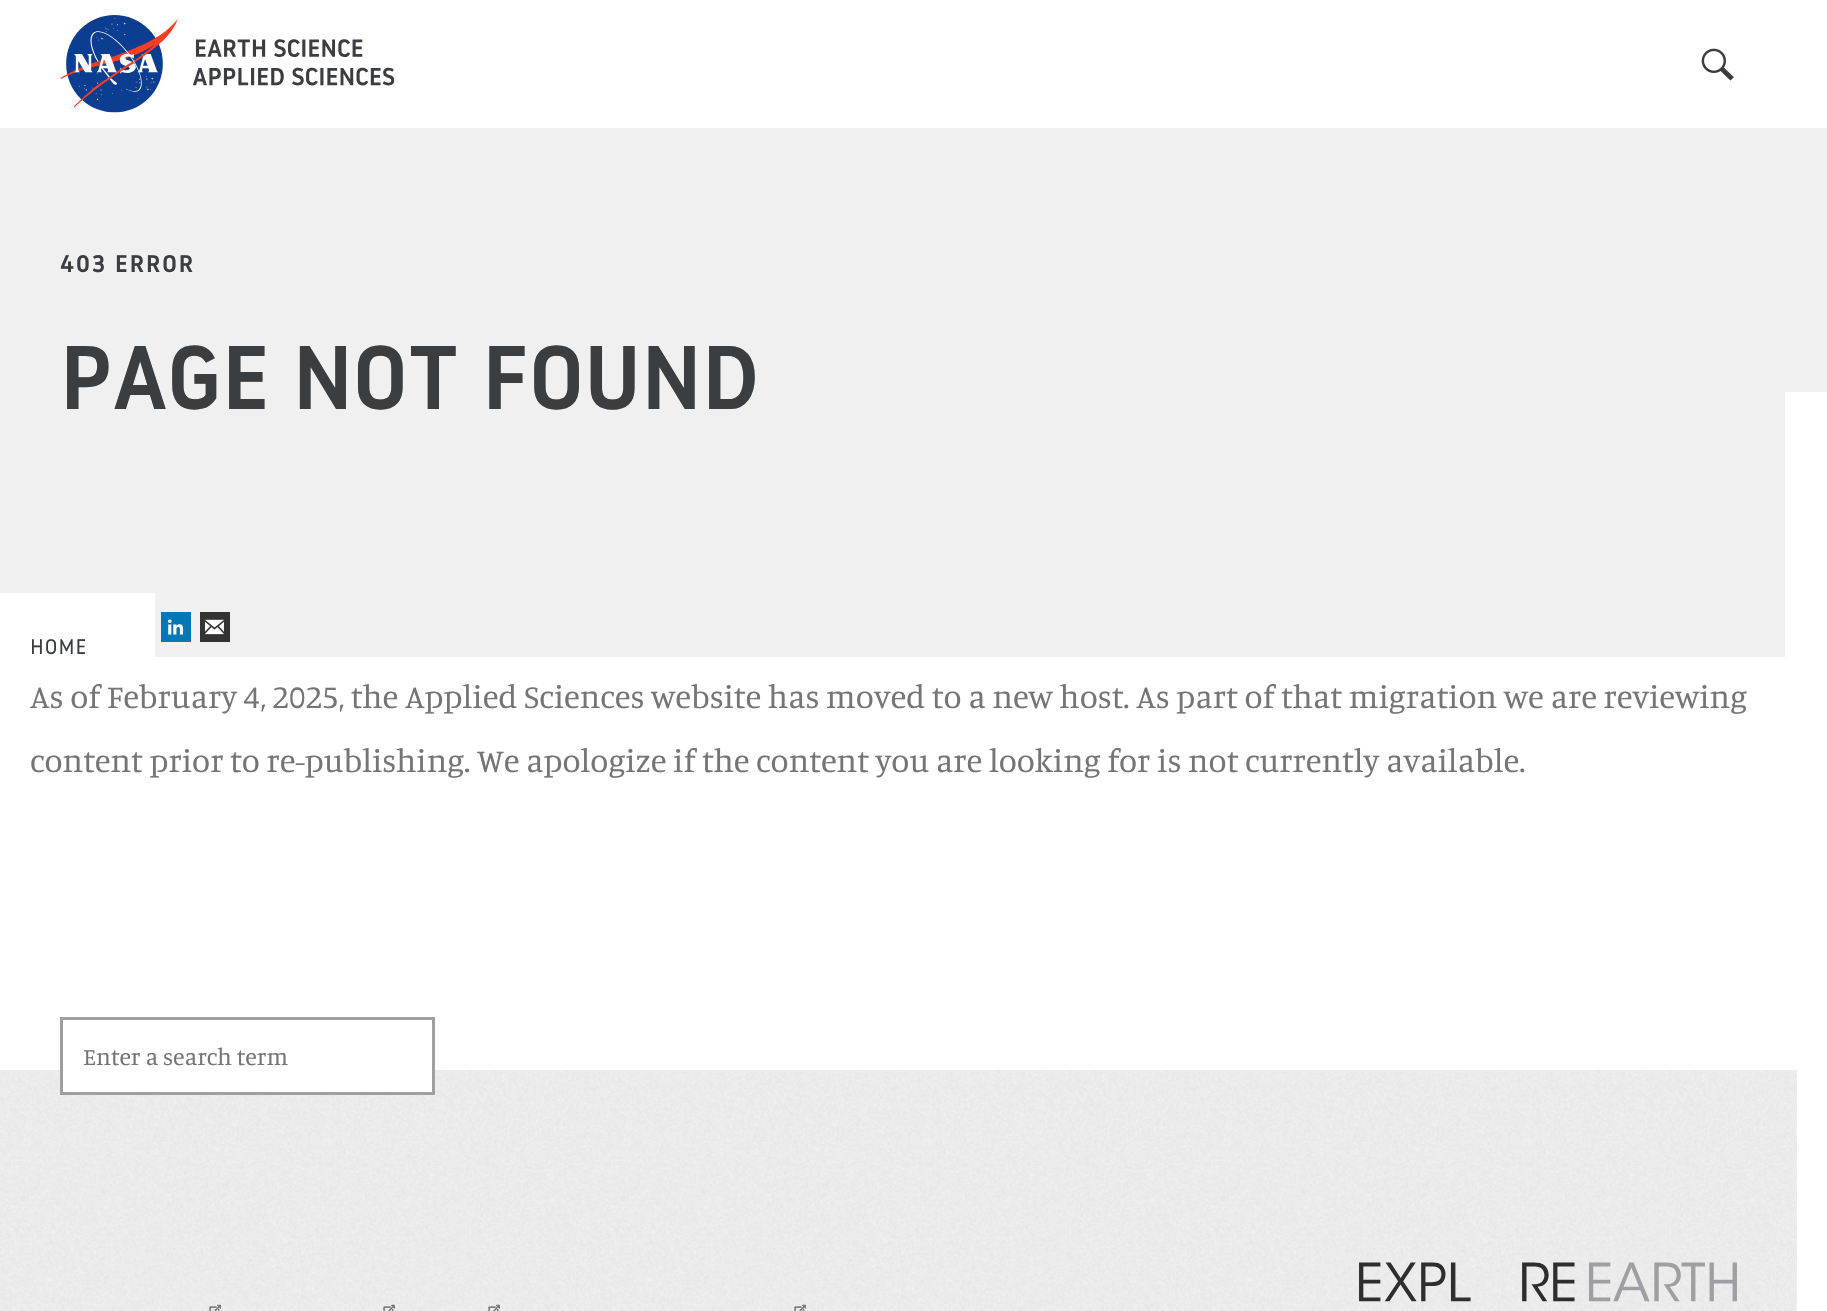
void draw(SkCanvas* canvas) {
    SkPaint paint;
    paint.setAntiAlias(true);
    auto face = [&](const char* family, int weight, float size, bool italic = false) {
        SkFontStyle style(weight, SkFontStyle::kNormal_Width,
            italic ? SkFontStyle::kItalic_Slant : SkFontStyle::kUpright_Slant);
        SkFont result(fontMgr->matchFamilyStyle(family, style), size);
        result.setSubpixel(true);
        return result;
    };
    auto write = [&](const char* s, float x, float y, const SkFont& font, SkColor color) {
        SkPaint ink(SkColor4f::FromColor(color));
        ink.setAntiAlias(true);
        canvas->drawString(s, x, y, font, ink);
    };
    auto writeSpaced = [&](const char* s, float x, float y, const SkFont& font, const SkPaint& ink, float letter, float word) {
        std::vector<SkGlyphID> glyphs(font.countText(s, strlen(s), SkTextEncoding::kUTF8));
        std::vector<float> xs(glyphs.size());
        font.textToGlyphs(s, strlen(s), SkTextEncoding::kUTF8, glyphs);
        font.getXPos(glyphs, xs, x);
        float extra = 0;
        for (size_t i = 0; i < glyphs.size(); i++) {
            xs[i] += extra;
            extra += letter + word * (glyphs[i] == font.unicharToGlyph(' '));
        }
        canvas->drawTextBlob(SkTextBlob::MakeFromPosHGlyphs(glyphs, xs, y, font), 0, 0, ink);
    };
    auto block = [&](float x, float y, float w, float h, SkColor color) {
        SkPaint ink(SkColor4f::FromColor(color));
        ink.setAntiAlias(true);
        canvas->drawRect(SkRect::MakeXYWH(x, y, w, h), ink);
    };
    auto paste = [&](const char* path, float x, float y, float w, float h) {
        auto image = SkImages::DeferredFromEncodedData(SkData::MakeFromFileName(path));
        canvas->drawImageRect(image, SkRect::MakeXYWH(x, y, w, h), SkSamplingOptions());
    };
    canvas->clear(SK_ColorWHITE);
    paste("pic1.png", 60, 15, 335, 98);
    paste("pic2.png", 1701, 48, 33, 33);
    block(0, 128, 1827, 529, SkColorSetRGB(240, 240, 241));
    auto kFont1 = face("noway", 500, 24);
    paint.setColor(SkColorSetRGB(58, 62, 65));
    writeSpaced("403 ERROR", 60, 272, kFont1, paint, 2, 0);
    auto kFont2 = face("noway", 500, 90);
    write("PAGE NOT FOUND", 60, 409, kFont2, SkColorSetRGB(58, 62, 65));
    block(1785, 392, 42, 265, SK_ColorWHITE);
    block(0, 593, 155, 64, SK_ColorWHITE);
    auto kFont3 = face("noway", 400, 21);
    writeSpaced("HOME", 30, 654, kFont3, paint, 1, 0);
    paste("pic3.png", 161, 612, 30, 30);
    paste("pic4.png", 200, 612, 30, 30);
    auto kFont4 = face("Manuale", 400, 33);
    write("As of February 4, 2025, the Applied Sciences website has moved to a new host. As part of that migration we are reviewing", 30, 708, kFont4, SkColorSetRGB(117, 117, 117));
    write("content prior to re-publishing. We apologize if the content you are looking for is not currently available.", 30, 772, kFont4, SkColorSetRGB(117, 117, 117));
    block(0, 1070, 1797, 241, SkColorSetRGB(240, 240, 241));
    paste("pic5.png", 0, 1070, 1797, 241);
    block(63, 1070, 369, 22, SK_ColorWHITE);
    paint.setStyle(SkPaint::kStroke_Style);
    paint.setStrokeWidth(3);
    paint.setColor(SkColorSetRGB(157, 159, 160));
    canvas->drawRect(SkRect::MakeXYWH(61.5f, 1018.5f, 372, 75), paint);
    auto kFont5 = face("Manuale", 400, 24);
    write("Enter a search term", 83, 1065, kFont5, SkColorSetRGB(117, 117, 117));
    paste("pic6.png", 1359, 1262, 378, 40);
    paste("pic7.png", 209, 1304, 12, 7);
    paste("pic8.png", 383, 1304, 12, 7);
    paste("pic9.png", 488, 1304, 12, 7);
    paste("pic10.png", 794, 1304, 12, 7);
}
